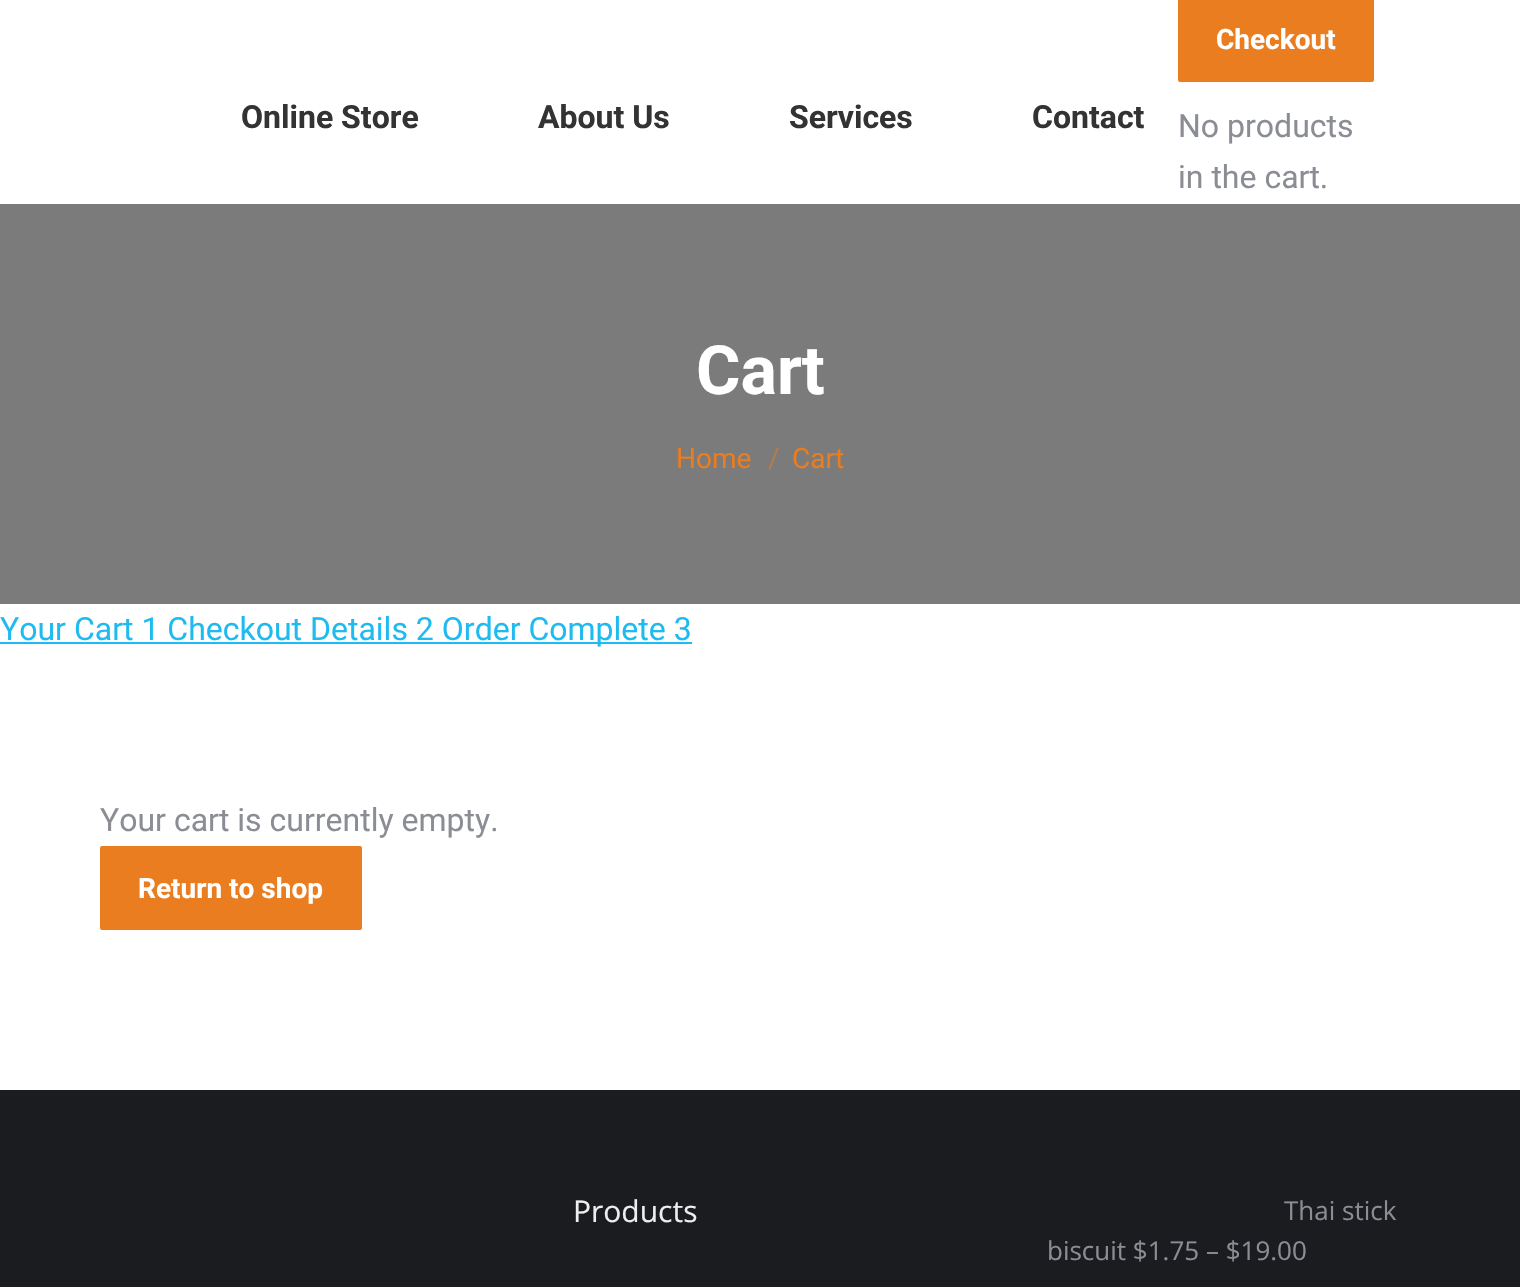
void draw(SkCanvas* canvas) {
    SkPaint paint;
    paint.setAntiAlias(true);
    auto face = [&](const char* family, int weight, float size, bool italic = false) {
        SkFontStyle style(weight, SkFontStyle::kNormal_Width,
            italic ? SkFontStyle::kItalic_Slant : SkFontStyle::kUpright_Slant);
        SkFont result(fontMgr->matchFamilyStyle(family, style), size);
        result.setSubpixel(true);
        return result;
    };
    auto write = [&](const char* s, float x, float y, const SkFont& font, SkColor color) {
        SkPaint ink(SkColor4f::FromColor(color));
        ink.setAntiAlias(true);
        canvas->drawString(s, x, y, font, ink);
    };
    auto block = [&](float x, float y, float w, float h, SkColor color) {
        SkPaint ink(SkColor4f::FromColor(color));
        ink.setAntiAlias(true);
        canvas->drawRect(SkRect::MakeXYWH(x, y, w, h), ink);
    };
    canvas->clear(SK_ColorWHITE);
    auto kFont1 = face("Roboto", 700, 32);
    write("Online Store", 241, 128, kFont1, SkColorSetRGB(51, 51, 51));
    write("About Us", 538, 128, kFont1, SkColorSetRGB(51, 51, 51));
    write("Services", 789, 128, kFont1, SkColorSetRGB(51, 51, 51));
    write("Contact", 1032, 128, kFont1, SkColorSetRGB(51, 51, 51));
    paint.setColor(SkColorSetRGB(233, 125, 31));
    canvas->drawRoundRect(SkRect::MakeXYWH(1179, -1, 194, 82), 1, 1, paint);
    paint.setStyle(SkPaint::kStroke_Style);
    paint.setStrokeWidth(2);
    canvas->drawRoundRect(SkRect::MakeXYWH(1179, -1, 194, 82), 1, 1, paint);
    auto kFont2 = face("Roboto", 700, 28);
    write("Checkout", 1216, 49, kFont2, SK_ColorWHITE);
    auto kFont3 = face("Roboto", 400, 32);
    write("No products", 1178, 137, kFont3, SkColorSetRGB(139, 141, 148));
    write("in the cart.", 1178, 188, kFont3, SkColorSetRGB(139, 141, 148));
    block(0, 204, 1520, 400, SkColorSetRGB(123, 123, 123));
    auto kFont4 = face("Roboto", 700, 68);
    write("Cart", 696, 394, kFont4, SK_ColorWHITE);
    auto kFont5 = face("Roboto", 400, 28);
    write("Home", 676, 468, kFont5, SkColorSetRGB(233, 125, 31));
    write("/", 768, 468, kFont5, SkColorSetRGB(178, 124, 77));
    write("Cart", 792, 468, kFont5, SkColorSetRGB(233, 125, 31));
    block(0, 642, 692, 2, SkColorSetRGB(30, 187, 240));
    write("Your Cart 1 Checkout Details 2 Order Complete 3", 0, 640, kFont3, SkColorSetRGB(30, 187, 240));
    write("Your cart is currently empty.", 100, 831, kFont3, SkColorSetRGB(139, 141, 148));
    paint.setStyle(SkPaint::kFill_Style);
    canvas->drawRoundRect(SkRect::MakeXYWH(101, 847, 260, 82), 1, 1, paint);
    paint.setStyle(SkPaint::kStroke_Style);
    canvas->drawRoundRect(SkRect::MakeXYWH(101, 847, 260, 82), 1, 1, paint);
    write("Return to shop", 138, 898, kFont2, SK_ColorWHITE);
    block(0, 1090, 1520, 197, SkColorSetRGB(26, 28, 32));
    auto kFont6 = face("Open Sans", 400, 30);
    write("Products", 573, 1222, kFont6, SkColorSetRGB(238, 238, 238));
    auto kFont7 = face("Open Sans", 400, 26);
    write("Thai stick", 1284, 1220, kFont7, SkColorSetRGB(139, 141, 148));
    write("biscuit $1.75 – $19.00", 1047, 1260, kFont7, SkColorSetRGB(139, 141, 148));
}
